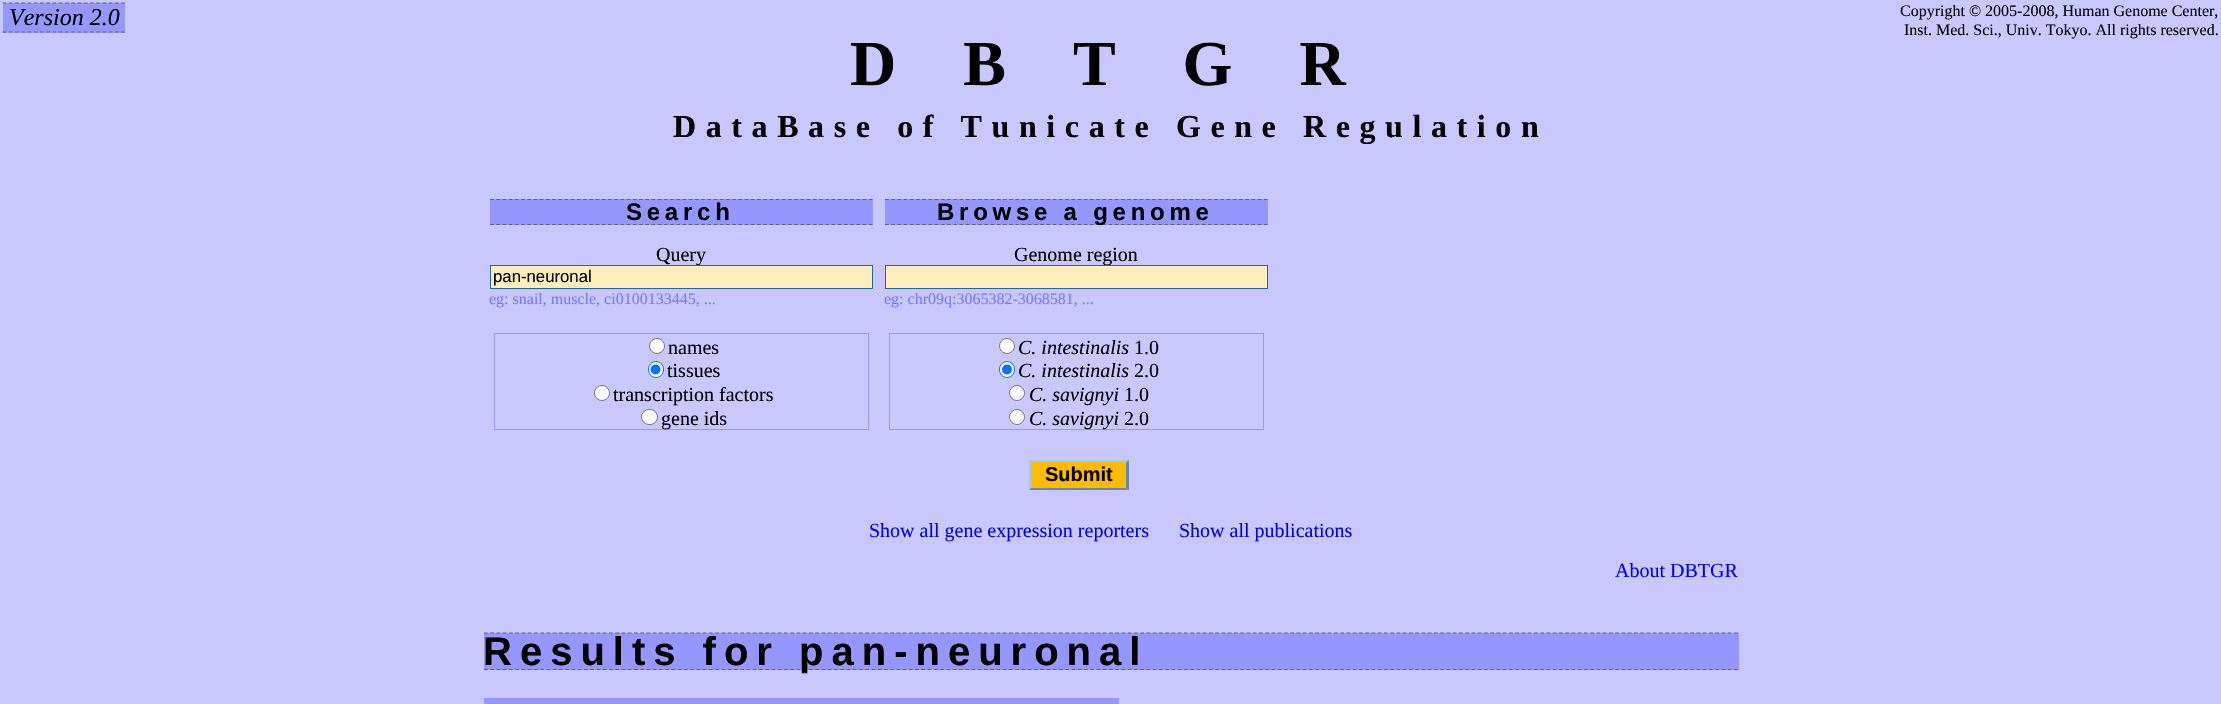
void draw(SkCanvas* canvas) {
    SkPaint paint;
    paint.setAntiAlias(true);
    auto face = [&](const char* family, int weight, float size, bool italic = false) {
        SkFontStyle style(weight, SkFontStyle::kNormal_Width,
            italic ? SkFontStyle::kItalic_Slant : SkFontStyle::kUpright_Slant);
        SkFont result(fontMgr->matchFamilyStyle(family, style), size);
        result.setSubpixel(true);
        return result;
    };
    auto write = [&](const char* s, float x, float y, const SkFont& font, SkColor color) {
        SkPaint ink(SkColor4f::FromColor(color));
        ink.setAntiAlias(true);
        canvas->drawString(s, x, y, font, ink);
    };
    auto writeSpaced = [&](const char* s, float x, float y, const SkFont& font, const SkPaint& ink, float letter, float word) {
        std::vector<SkGlyphID> glyphs(font.countText(s, strlen(s), SkTextEncoding::kUTF8));
        std::vector<float> xs(glyphs.size());
        font.textToGlyphs(s, strlen(s), SkTextEncoding::kUTF8, glyphs);
        font.getXPos(glyphs, xs, x);
        float extra = 0;
        for (size_t i = 0; i < glyphs.size(); i++) {
            xs[i] += extra;
            extra += letter + word * (glyphs[i] == font.unicharToGlyph(' '));
        }
        canvas->drawTextBlob(SkTextBlob::MakeFromPosHGlyphs(glyphs, xs, y, font), 0, 0, ink);
    };
    auto block = [&](float x, float y, float w, float h, SkColor color) {
        SkPaint ink(SkColor4f::FromColor(color));
        ink.setAntiAlias(true);
        canvas->drawRect(SkRect::MakeXYWH(x, y, w, h), ink);
    };
    canvas->clear(SkColorSetRGB(200, 200, 255));
    block(3, 3, 122, 30, SkColorSetRGB(150, 150, 255));
    paint.setStyle(SkPaint::kStroke_Style);
    paint.setStrokeWidth(1.2f);
    paint.setColor(SkColorSetRGB(100, 100, 100));
    paint.setPathEffect(SkDashPathEffect::Make({{3.75f, 2.5f}}, 0));
    canvas->drawPath(SkPathBuilder().moveTo(2.5f, 3).lineTo(125, 3).detach(), paint);
    paint.setPathEffect(nullptr);
    paint.setPathEffect(SkDashPathEffect::Make({{3.75f, 2.5f}}, 0));
    canvas->drawPath(SkPathBuilder().moveTo(2.5f, 32).lineTo(125, 32).detach(), paint);
    paint.setPathEffect(nullptr);
    auto kFont1 = face("Liberation Serif", 400, 24, true);
    write("Version 2.0", 9, 25, kFont1, SK_ColorBLACK);
    auto kFont2 = face("Liberation Serif", 400, 16);
    write("Copyright © 2005-2008, Human Genome Center,", 1900, 16, kFont2, SK_ColorBLACK);
    write("Inst. Med. Sci., Univ. Tokyo. All rights reserved.", 1904, 35, kFont2, SK_ColorBLACK);
    auto kFont3 = face("Liberation Serif", 700, 64);
    paint.setStyle(SkPaint::kFill_Style);
    paint.setColor(SK_ColorBLACK);
    writeSpaced("D B T G R", 850, 85, kFont3, paint, 25.5f, 0);
    auto kFont4 = face("Liberation Serif", 700, 32);
    writeSpaced("DataBase of Tunicate Gene Regulation", 673, 137, kFont4, paint, 9.6f, 0);
    block(490, 199, 383, 26, SkColorSetRGB(150, 150, 255));
    paint.setStyle(SkPaint::kStroke_Style);
    paint.setColor(SkColorSetRGB(100, 100, 100));
    paint.setPathEffect(SkDashPathEffect::Make({{3.75f, 2.46f}}, 0));
    canvas->drawPath(SkPathBuilder().moveTo(490, 199.5f).lineTo(872.5f, 199.5f).detach(), paint);
    paint.setPathEffect(nullptr);
    paint.setPathEffect(SkDashPathEffect::Make({{3.75f, 2.46f}}, 0));
    canvas->drawPath(SkPathBuilder().moveTo(490, 224.5f).lineTo(872.5f, 224.5f).detach(), paint);
    paint.setPathEffect(nullptr);
    auto kFont5 = face("Liberation Sans", 700, 24);
    paint.setStyle(SkPaint::kFill_Style);
    paint.setColor(SK_ColorBLACK);
    writeSpaced("Search", 626, 220, kFont5, paint, 4.75f, 0);
    auto kFont6 = face("Liberation Serif", 400, 20);
    write("Query", 656, 261, kFont6, SK_ColorBLACK);
    paint.setColor(SkColorSetRGB(255, 238, 187));
    canvas->drawRect(SkRect::MakeXYWH(490.5f, 265.5f, 382, 23), paint);
    paint.setStyle(SkPaint::kStroke_Style);
    paint.setStrokeWidth(1);
    paint.setColor(SkColorSetRGB(34, 102, 170));
    canvas->drawRect(SkRect::MakeXYWH(490.5f, 265.5f, 382, 23), paint);
    auto kFont7 = face("Liberation Sans", 400, 16.75f);
    write("pan-neuronal", 493, 282, kFont7, SK_ColorBLACK);
    write("eg: snail, muscle, ci0100133445, ...", 489, 304, kFont2, SkColorSetRGB(120, 120, 255));
    paint.setColor(SkColorSetRGB(150, 150, 255));
    canvas->drawRect(SkRect::MakeXYWH(494.5f, 333.5f, 374, 96), paint);
    paint.setStyle(SkPaint::kFill_Style);
    paint.setColor(SK_ColorWHITE);
    canvas->drawCircle(657, 346, 7.5f, paint);
    paint.setStyle(SkPaint::kStroke_Style);
    paint.setColor(SkColorSetRGB(118, 118, 118));
    canvas->drawCircle(657, 346, 7.5f, paint);
    write("names", 668, 354, kFont6, SK_ColorBLACK);
    paint.setStyle(SkPaint::kFill_Style);
    paint.setColor(SK_ColorWHITE);
    canvas->drawRoundRect(SkRect::MakeXYWH(648.5f, 361.5f, 15, 16), 7.5f, 7.5f, paint);
    paint.setStyle(SkPaint::kStroke_Style);
    paint.setColor(SkColorSetRGB(0, 117, 255));
    canvas->drawRoundRect(SkRect::MakeXYWH(648.5f, 361.5f, 15, 16), 7.5f, 7.5f, paint);
    paint.setStyle(SkPaint::kFill_Style);
    canvas->drawCircle(655.5f, 369.5f, 5, paint);
    write("tissues", 667, 377, kFont6, SK_ColorBLACK);
    paint.setColor(SK_ColorWHITE);
    canvas->drawCircle(602, 393, 7.5f, paint);
    paint.setStyle(SkPaint::kStroke_Style);
    paint.setColor(SkColorSetRGB(118, 118, 118));
    canvas->drawCircle(602, 393, 7.5f, paint);
    write("transcription factors", 613, 401, kFont6, SK_ColorBLACK);
    paint.setStyle(SkPaint::kFill_Style);
    paint.setColor(SK_ColorWHITE);
    canvas->drawRoundRect(SkRect::MakeXYWH(641.5f, 409.5f, 16, 15), 7.5f, 7.5f, paint);
    paint.setStyle(SkPaint::kStroke_Style);
    paint.setColor(SkColorSetRGB(118, 118, 118));
    canvas->drawRoundRect(SkRect::MakeXYWH(641.5f, 409.5f, 16, 15), 7.5f, 7.5f, paint);
    write("gene ids", 661, 425, kFont6, SK_ColorBLACK);
    block(885, 199, 383, 26, SkColorSetRGB(150, 150, 255));
    paint.setStrokeWidth(1.2f);
    paint.setColor(SkColorSetRGB(100, 100, 100));
    paint.setPathEffect(SkDashPathEffect::Make({{3.75f, 2.46f}}, 0));
    canvas->drawPath(SkPathBuilder().moveTo(885, 199.5f).lineTo(1267.5f, 199.5f).detach(), paint);
    paint.setPathEffect(nullptr);
    paint.setPathEffect(SkDashPathEffect::Make({{3.75f, 2.46f}}, 0));
    canvas->drawPath(SkPathBuilder().moveTo(885, 224.5f).lineTo(1267.5f, 224.5f).detach(), paint);
    paint.setPathEffect(nullptr);
    paint.setStyle(SkPaint::kFill_Style);
    paint.setColor(SK_ColorBLACK);
    writeSpaced("Browse a genome", 937, 220, kFont5, paint, 4.75f, 0);
    write("Genome region", 1014, 261, kFont6, SK_ColorBLACK);
    paint.setColor(SkColorSetRGB(255, 238, 187));
    canvas->drawRect(SkRect::MakeXYWH(885.5f, 265.5f, 382, 23), paint);
    paint.setStyle(SkPaint::kStroke_Style);
    paint.setStrokeWidth(1);
    paint.setColor(SkColorSetRGB(34, 102, 170));
    canvas->drawRect(SkRect::MakeXYWH(885.5f, 265.5f, 382, 23), paint);
    write("eg: chr09q:3065382-3068581, ...", 884, 304, kFont2, SkColorSetRGB(120, 120, 255));
    paint.setColor(SkColorSetRGB(150, 150, 255));
    canvas->drawRect(SkRect::MakeXYWH(889.5f, 333.5f, 374, 96), paint);
    paint.setStyle(SkPaint::kFill_Style);
    paint.setColor(SK_ColorWHITE);
    canvas->drawCircle(1007, 346, 7.5f, paint);
    paint.setStyle(SkPaint::kStroke_Style);
    paint.setColor(SkColorSetRGB(118, 118, 118));
    canvas->drawCircle(1007, 346, 7.5f, paint);
    auto kFont8 = face("Liberation Serif", 400, 20, true);
    write("C. intestinalis", 1018, 354, kFont8, SK_ColorBLACK);
    write("1.0", 1134, 354, kFont6, SK_ColorBLACK);
    paint.setStyle(SkPaint::kFill_Style);
    paint.setColor(SK_ColorWHITE);
    canvas->drawRoundRect(SkRect::MakeXYWH(999.5f, 361.5f, 15, 16), 7.5f, 7.5f, paint);
    paint.setStyle(SkPaint::kStroke_Style);
    paint.setColor(SkColorSetRGB(0, 117, 255));
    canvas->drawRoundRect(SkRect::MakeXYWH(999.5f, 361.5f, 15, 16), 7.5f, 7.5f, paint);
    paint.setStyle(SkPaint::kFill_Style);
    canvas->drawCircle(1007, 369.5f, 5, paint);
    write("C. intestinalis", 1018, 377, kFont8, SK_ColorBLACK);
    write("2.0", 1134, 377, kFont6, SK_ColorBLACK);
    paint.setColor(SK_ColorWHITE);
    canvas->drawCircle(1017, 393, 7.5f, paint);
    paint.setStyle(SkPaint::kStroke_Style);
    paint.setColor(SkColorSetRGB(118, 118, 118));
    canvas->drawCircle(1017, 393, 7.5f, paint);
    write("C. savignyi", 1029, 401, kFont8, SK_ColorBLACK);
    write("1.0", 1124, 401, kFont6, SK_ColorBLACK);
    paint.setStyle(SkPaint::kFill_Style);
    paint.setColor(SK_ColorWHITE);
    canvas->drawCircle(1017, 417, 7.5f, paint);
    paint.setStyle(SkPaint::kStroke_Style);
    paint.setColor(SkColorSetRGB(118, 118, 118));
    canvas->drawCircle(1017, 417, 7.5f, paint);
    write("C. savignyi", 1029, 425, kFont8, SK_ColorBLACK);
    write("2.0", 1124, 425, kFont6, SK_ColorBLACK);
    block(1029, 460, 100, 30, SkColorSetRGB(255, 187, 0));
    paint.setStyle(SkPaint::kFill_Style);
    paint.setColor(SkColorSetRGB(153, 204, 255));
    canvas->drawPath(SkPathBuilder().moveTo(1029, 460).lineTo(1129, 460).lineTo(1126, 462).lineTo(1031, 462).close().detach(), paint);
    paint.setColor(SkColorSetRGB(102, 136, 170));
    canvas->drawPath(SkPathBuilder().moveTo(1129, 460).lineTo(1129, 490).lineTo(1126, 487.5f).lineTo(1126, 462.5f).close().detach(), paint);
    canvas->drawPath(SkPathBuilder().moveTo(1129, 490).lineTo(1029, 490).lineTo(1031, 488).lineTo(1126, 488).close().detach(), paint);
    paint.setColor(SkColorSetRGB(153, 204, 255));
    canvas->drawPath(SkPathBuilder().moveTo(1029, 490).lineTo(1029, 460).lineTo(1031, 462.5f).lineTo(1031, 487.5f).close().detach(), paint);
    auto kFont9 = face("Liberation Sans", 700, 20);
    write("Submit", 1045, 481, kFont9, SK_ColorBLACK);
    write("Show all gene expression reporters", 869, 537, kFont6, SkColorSetRGB(0, 0, 255));
    write("Show all publications", 1179, 537, kFont6, SkColorSetRGB(0, 0, 255));
    write("About DBTGR", 1615, 577, kFont6, SkColorSetRGB(0, 0, 255));
    block(484, 633, 1255, 37, SkColorSetRGB(150, 150, 255));
    paint.setStyle(SkPaint::kStroke_Style);
    paint.setStrokeWidth(1.2f);
    paint.setColor(SkColorSetRGB(100, 100, 100));
    paint.setPathEffect(SkDashPathEffect::Make({{3.75f, 2.5f}}, 0));
    canvas->drawPath(SkPathBuilder().moveTo(484, 633).lineTo(1739, 633).detach(), paint);
    paint.setPathEffect(nullptr);
    paint.setPathEffect(SkDashPathEffect::Make({{3.75f, 2.5f}}, 0));
    canvas->drawPath(SkPathBuilder().moveTo(484, 669.5f).lineTo(1739, 669.5f).detach(), paint);
    paint.setPathEffect(nullptr);
    auto kFont10 = face("Liberation Sans", 700, 40);
    paint.setStyle(SkPaint::kFill_Style);
    paint.setColor(SK_ColorBLACK);
    writeSpaced("Results for pan-neuronal", 483, 665, kFont10, paint, 8, 0);
    block(484, 698, 635, 6, SkColorSetRGB(150, 150, 255));
}
